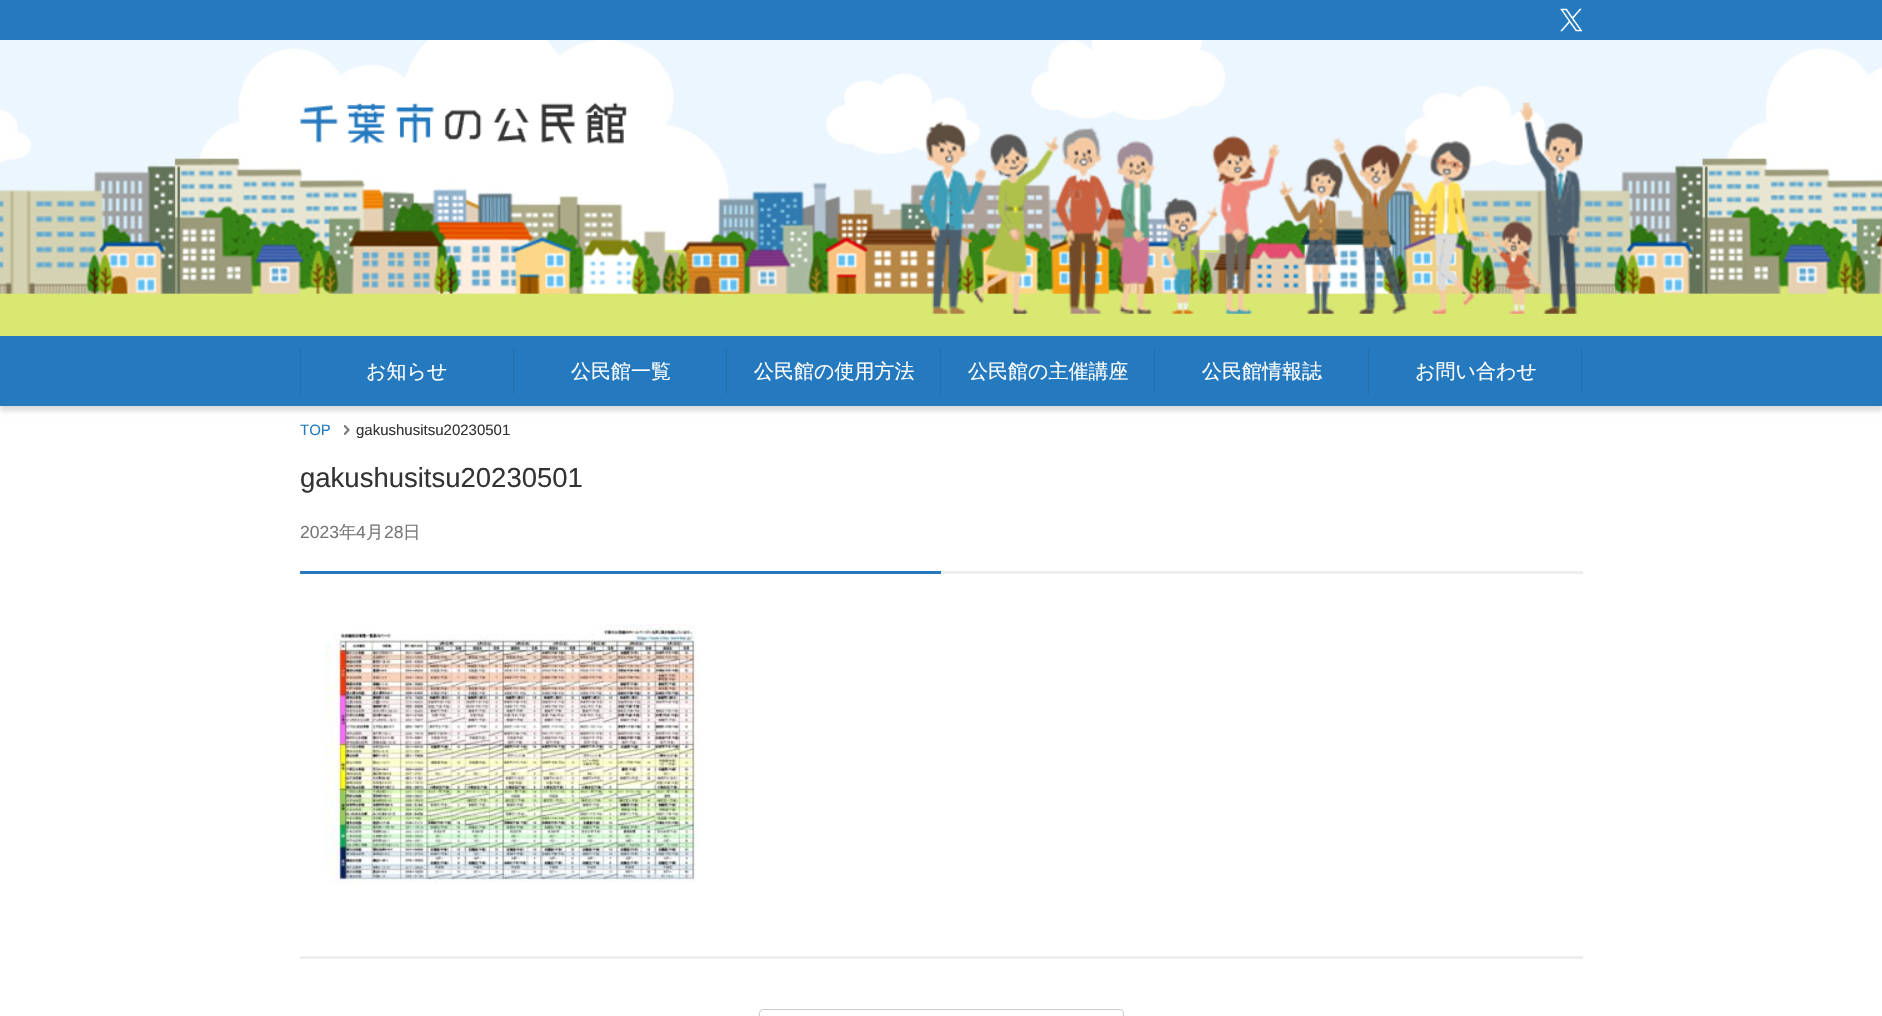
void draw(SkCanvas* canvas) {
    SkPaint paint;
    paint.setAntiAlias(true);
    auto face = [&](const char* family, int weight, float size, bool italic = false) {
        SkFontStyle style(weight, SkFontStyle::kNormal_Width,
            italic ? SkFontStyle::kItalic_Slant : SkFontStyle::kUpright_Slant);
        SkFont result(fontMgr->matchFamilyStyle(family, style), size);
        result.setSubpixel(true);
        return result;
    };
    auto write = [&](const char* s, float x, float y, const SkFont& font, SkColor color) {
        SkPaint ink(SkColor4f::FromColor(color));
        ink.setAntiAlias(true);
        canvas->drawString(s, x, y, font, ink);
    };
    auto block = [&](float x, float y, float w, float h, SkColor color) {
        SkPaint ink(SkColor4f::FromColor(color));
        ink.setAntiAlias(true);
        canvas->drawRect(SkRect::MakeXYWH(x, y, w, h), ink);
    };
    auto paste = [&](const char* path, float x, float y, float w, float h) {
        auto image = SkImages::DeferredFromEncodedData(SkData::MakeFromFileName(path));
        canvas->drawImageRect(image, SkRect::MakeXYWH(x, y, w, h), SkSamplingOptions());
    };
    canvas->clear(SK_ColorWHITE);
    block(0, 0, 1882, 40, SkColorSetRGB(37, 121, 191));
    paste("pic1.png", 1560, 8, 23, 24);
    paste("pic2.png", 0, 40, 1882, 296);
    paste("pic3.png", 921, 102, 662, 212);
    paste("pic4.png", 300, 102, 327, 42);
    paint.setColor(SkColorSetRGB(221, 221, 221));
    paint.setMaskFilter(SkMaskFilter::MakeBlur(kNormal_SkBlurStyle, 2.5f));
    canvas->drawRect(SkRect::MakeXYWH(0, 341, 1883, 70), paint);
    paint.setMaskFilter(nullptr);
    block(0, 336, 1882, 70, SkColorSetRGB(37, 121, 191));
    block(300, 349, 1, 45, SkColorSetRGB(34, 110, 173));
    auto kFont1 = face("WenQuanYi Zen Hei", 500, 20);
    write("お知らせ", 366, 378, kFont1, SK_ColorWHITE);
    block(513, 349, 1, 45, SkColorSetRGB(34, 110, 173));
    write("公民館一覧", 571, 378, kFont1, SK_ColorWHITE);
    block(726, 349, 1, 45, SkColorSetRGB(34, 110, 173));
    write("公民館の使用方法", 754, 378, kFont1, SK_ColorWHITE);
    block(940, 349, 1, 45, SkColorSetRGB(34, 110, 173));
    write("公民館の主催講座", 968, 378, kFont1, SK_ColorWHITE);
    block(1154, 349, 1, 45, SkColorSetRGB(34, 110, 173));
    write("公民館情報誌", 1202, 378, kFont1, SK_ColorWHITE);
    block(1368, 349, 1, 45, SkColorSetRGB(34, 110, 173));
    write("お問い合わせ", 1415, 378, kFont1, SK_ColorWHITE);
    block(1581, 349, 1, 45, SkColorSetRGB(34, 110, 173));
    auto kFont2 = face("Liberation Sans", 400, 15);
    write("TOP", 300, 435, kFont2, SkColorSetRGB(37, 121, 191));
    paste("pic5.png", 344, 425, 6, 10);
    write("gakushusitsu20230501", 356, 435, kFont2, SkColorSetRGB(51, 51, 51));
    block(941, 571, 642, 3, SkColorSetRGB(238, 238, 238));
    auto kFont3 = face("Liberation Sans", 400, 27.5f);
    write("gakushusitsu20230501", 300, 487, kFont3, SkColorSetRGB(51, 51, 51));
    auto kFont4 = face("Liberation Sans", 400, 17.5f);
    write("2023", 300, 538, kFont4, SkColorSetRGB(119, 119, 119));
    auto kFont5 = face("WenQuanYi Zen Hei", 500, 17.5f);
    write("年", 339, 538, kFont5, SkColorSetRGB(119, 119, 119));
    write("4", 356, 538, kFont4, SkColorSetRGB(119, 119, 119));
    write("月", 366, 538, kFont5, SkColorSetRGB(119, 119, 119));
    write("28", 384, 538, kFont4, SkColorSetRGB(119, 119, 119));
    write("日", 403, 538, kFont5, SkColorSetRGB(119, 119, 119));
    block(300, 571, 641, 3, SkColorSetRGB(37, 121, 191));
    block(300, 956, 1283, 3, SkColorSetRGB(238, 238, 238));
    paste("pic6.png", 325, 624, 375, 260);
    paint.setStyle(SkPaint::kStroke_Style);
    paint.setStrokeWidth(1);
    paint.setColor(SkColorSetRGB(204, 204, 204));
    canvas->drawRoundRect(SkRect::MakeXYWH(759.5f, 1009.5f, 364, 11), 3.5f, 3.5f, paint);
}
